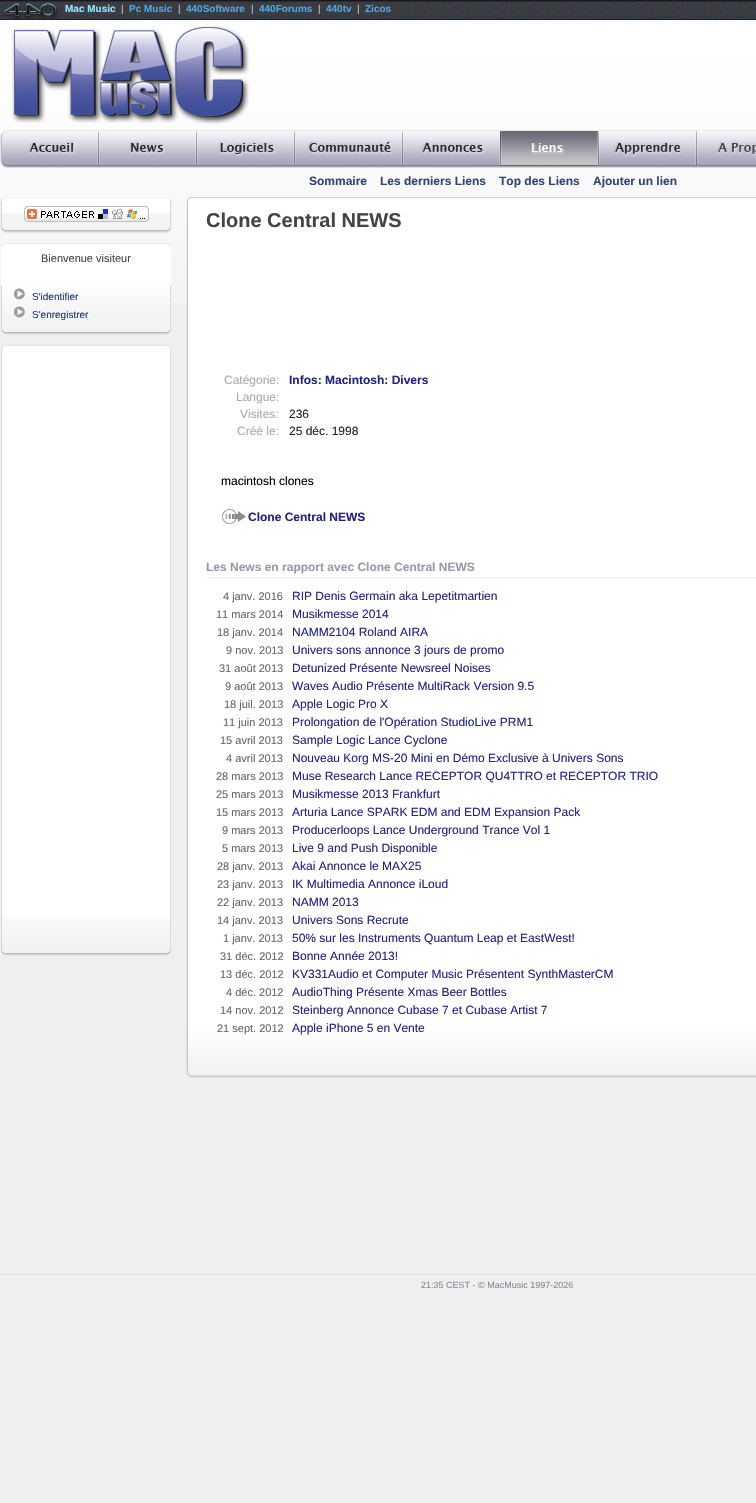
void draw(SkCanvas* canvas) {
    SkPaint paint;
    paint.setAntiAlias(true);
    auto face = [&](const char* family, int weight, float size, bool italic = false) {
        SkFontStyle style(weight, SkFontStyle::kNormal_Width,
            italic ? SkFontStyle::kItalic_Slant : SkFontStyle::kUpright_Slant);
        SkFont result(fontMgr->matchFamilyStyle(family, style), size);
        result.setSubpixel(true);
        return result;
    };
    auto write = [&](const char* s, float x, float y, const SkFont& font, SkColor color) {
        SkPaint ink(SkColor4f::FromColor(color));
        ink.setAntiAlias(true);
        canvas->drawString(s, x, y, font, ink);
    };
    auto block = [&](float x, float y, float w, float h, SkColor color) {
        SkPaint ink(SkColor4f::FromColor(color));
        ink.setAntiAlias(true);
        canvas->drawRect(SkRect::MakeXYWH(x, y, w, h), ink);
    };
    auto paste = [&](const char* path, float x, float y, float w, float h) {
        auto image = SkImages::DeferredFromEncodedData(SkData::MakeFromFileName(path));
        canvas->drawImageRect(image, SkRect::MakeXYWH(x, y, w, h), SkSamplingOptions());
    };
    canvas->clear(SkColorSetRGB(239, 239, 239));
    paste("pic1.png", 0, 20, 756, 283);
    paste("pic2.png", 0, 0, 756, 20);
    paste("pic3.png", 0, 0, 60, 19);
    auto kFont1 = face("Liberation Sans", 700, 10);
    write("Mac Music", 65, 12, kFont1, SkColorSetRGB(142, 228, 255));
    auto kFont2 = face("Liberation Sans", 400, 10);
    write("|", 121, 12, kFont2, SkColorSetRGB(183, 195, 209));
    write("Pc Music", 129, 12, kFont1, SkColorSetRGB(78, 164, 222));
    write("|", 178, 12, kFont2, SkColorSetRGB(183, 195, 209));
    write("440Software", 186, 12, kFont1, SkColorSetRGB(78, 164, 222));
    write("|", 251, 12, kFont2, SkColorSetRGB(183, 195, 209));
    write("440Forums", 259, 12, kFont1, SkColorSetRGB(78, 164, 222));
    write("|", 318, 12, kFont2, SkColorSetRGB(183, 195, 209));
    write("440tv", 326, 12, kFont1, SkColorSetRGB(78, 164, 222));
    write("|", 357, 12, kFont2, SkColorSetRGB(183, 195, 209));
    write("Zicos", 365, 12, kFont1, SkColorSetRGB(78, 164, 222));
    paste("pic4.png", 12, 26, 237, 98);
    paste("pic5.png", 0, 130, 756, 38);
    paste("pic6.png", 500, 130, 98, 38);
    auto kFont3 = face("Liberation Sans", 700, 12);
    write("Sommaire", 309, 185, kFont3, SkColorSetRGB(51, 68, 119));
    write("Les derniers Liens", 380, 185, kFont3, SkColorSetRGB(51, 68, 119));
    write("Top des Liens", 499, 185, kFont3, SkColorSetRGB(51, 68, 119));
    write("Ajouter un lien", 593, 185, kFont3, SkColorSetRGB(51, 68, 119));
    paste("pic7.png", 1, 197, 170, 4);
    paste("pic8.png", 0, 201, 172, 12);
    paste("pic10.png", 0, 213, 172, 20);
    paste("pic9.png", 24, 206, 125, 16);
    paste("pic11.png", 1, 243, 170, 4);
    block(1, 247, 170, 38, SK_ColorWHITE);
    auto kFont4 = face("Liberation Sans", 400, 11);
    write("Bienvenue visiteur", 41, 262, kFont4, SkColorSetRGB(68, 68, 68));
    paste("pic14.png", 0, 285, 172, 50);
    paste("pic12.png", 14, 288, 11, 12);
    write("S'identifier", 32, 300, kFont2, SkColorSetRGB(34, 51, 119));
    paste("pic13.png", 14, 306, 11, 12);
    write("S'enregistrer", 32, 318, kFont2, SkColorSetRGB(34, 51, 119));
    paste("pic15.png", 1, 345, 170, 4);
    paste("pic16.png", 0, 349, 172, 568);
    paste("pic17.png", 0, 917, 172, 39);
    paste("pic18.png", 187, 197, 569, 4);
    paste("pic19.png", 186, 201, 570, 867);
    auto kFont5 = face("Liberation Sans", 700, 20);
    write("Clone Central NEWS", 206, 227, kFont5, SkColorSetRGB(68, 68, 68));
    auto kFont6 = face("Liberation Sans", 400, 12);
    write("Catégorie:", 224, 384, kFont6, SkColorSetRGB(170, 170, 170));
    write("Infos: Macintosh: Divers", 289, 384, kFont3, SkColorSetRGB(34, 34, 136));
    write("Langue:", 236, 401, kFont6, SkColorSetRGB(170, 170, 170));
    write("Visites:", 240, 418, kFont6, SkColorSetRGB(170, 170, 170));
    write("236", 289, 418, kFont6, SkColorSetRGB(34, 34, 34));
    write("Créé le:", 237, 435, kFont6, SkColorSetRGB(170, 170, 170));
    write("25 déc. 1998", 289, 435, kFont6, SkColorSetRGB(34, 34, 34));
    write("macintosh clones", 221, 485, kFont6, SK_ColorBLACK);
    paste("pic20.png", 222, 509, 24, 15);
    write("Clone Central NEWS", 248, 521, kFont3, SkColorSetRGB(34, 34, 136));
    write("Les News en rapport avec Clone Central NEWS", 206, 571, kFont3, SkColorSetRGB(153, 153, 170));
    block(206, 577, 550, 1, SkColorSetRGB(238, 238, 255));
    write("4 janv. 2016", 223, 600, kFont4, SkColorSetRGB(102, 102, 102));
    write("RIP Denis Germain aka Lepetitmartien", 292, 600, kFont6, SkColorSetRGB(34, 34, 136));
    write("11 mars 2014", 216, 618, kFont4, SkColorSetRGB(102, 102, 102));
    write("Musikmesse 2014", 292, 618, kFont6, SkColorSetRGB(34, 34, 136));
    write("18 janv. 2014", 217, 636, kFont4, SkColorSetRGB(102, 102, 102));
    write("NAMM2104 Roland AIRA", 292, 636, kFont6, SkColorSetRGB(34, 34, 136));
    write("9 nov. 2013", 226, 654, kFont4, SkColorSetRGB(102, 102, 102));
    write("Univers sons annonce 3 jours de promo", 292, 654, kFont6, SkColorSetRGB(34, 34, 136));
    write("31 août 2013", 219, 672, kFont4, SkColorSetRGB(102, 102, 102));
    write("Detunized Présente Newsreel Noises", 292, 672, kFont6, SkColorSetRGB(34, 34, 136));
    write("9 août 2013", 225, 690, kFont4, SkColorSetRGB(102, 102, 102));
    write("Waves Audio Présente MultiRack Version 9.5", 292, 690, kFont6, SkColorSetRGB(34, 34, 136));
    write("18 juil. 2013", 224, 708, kFont4, SkColorSetRGB(102, 102, 102));
    write("Apple Logic Pro X", 292, 708, kFont6, SkColorSetRGB(34, 34, 136));
    write("11 juin 2013", 223, 726, kFont4, SkColorSetRGB(102, 102, 102));
    write("Prolongation de l'Opération StudioLive PRM1", 292, 726, kFont6, SkColorSetRGB(34, 34, 136));
    write("15 avril 2013", 220, 744, kFont4, SkColorSetRGB(102, 102, 102));
    write("Sample Logic Lance Cyclone", 292, 744, kFont6, SkColorSetRGB(34, 34, 136));
    write("4 avril 2013", 226, 762, kFont4, SkColorSetRGB(102, 102, 102));
    write("Nouveau Korg MS-20 Mini en Démo Exclusive à Univers Sons", 292, 762, kFont6, SkColorSetRGB(34, 34, 136));
    write("28 mars 2013", 216, 780, kFont4, SkColorSetRGB(102, 102, 102));
    write("Muse Research Lance RECEPTOR QU4TTRO et RECEPTOR TRIO", 292, 780, kFont6, SkColorSetRGB(34, 34, 136));
    write("25 mars 2013", 216, 798, kFont4, SkColorSetRGB(102, 102, 102));
    write("Musikmesse 2013 Frankfurt", 292, 798, kFont6, SkColorSetRGB(34, 34, 136));
    write("15 mars 2013", 216, 816, kFont4, SkColorSetRGB(102, 102, 102));
    write("Arturia Lance SPARK EDM and EDM Expansion Pack", 292, 816, kFont6, SkColorSetRGB(34, 34, 136));
    write("9 mars 2013", 222, 834, kFont4, SkColorSetRGB(102, 102, 102));
    write("Producerloops Lance Underground Trance Vol 1", 292, 834, kFont6, SkColorSetRGB(34, 34, 136));
    write("5 mars 2013", 222, 852, kFont4, SkColorSetRGB(102, 102, 102));
    write("Live 9 and Push Disponible", 292, 852, kFont6, SkColorSetRGB(34, 34, 136));
    write("28 janv. 2013", 217, 870, kFont4, SkColorSetRGB(102, 102, 102));
    write("Akai Annonce le MAX25", 292, 870, kFont6, SkColorSetRGB(34, 34, 136));
    write("23 janv. 2013", 217, 888, kFont4, SkColorSetRGB(102, 102, 102));
    write("IK Multimedia Annonce iLoud", 292, 888, kFont6, SkColorSetRGB(34, 34, 136));
    write("22 janv. 2013", 217, 906, kFont4, SkColorSetRGB(102, 102, 102));
    write("NAMM 2013", 292, 906, kFont6, SkColorSetRGB(34, 34, 136));
    write("14 janv. 2013", 217, 924, kFont4, SkColorSetRGB(102, 102, 102));
    write("Univers Sons Recrute", 292, 924, kFont6, SkColorSetRGB(34, 34, 136));
    write("1 janv. 2013", 223, 942, kFont4, SkColorSetRGB(102, 102, 102));
    write("50% sur les Instruments Quantum Leap et EastWest!", 292, 942, kFont6, SkColorSetRGB(34, 34, 136));
    write("31 déc. 2012", 220, 960, kFont4, SkColorSetRGB(102, 102, 102));
    write("Bonne Année 2013!", 292, 960, kFont6, SkColorSetRGB(34, 34, 136));
    write("13 déc. 2012", 220, 978, kFont4, SkColorSetRGB(102, 102, 102));
    write("KV331Audio et Computer Music Présentent SynthMasterCM", 292, 978, kFont6, SkColorSetRGB(34, 34, 136));
    write("4 déc. 2012", 226, 996, kFont4, SkColorSetRGB(102, 102, 102));
    write("AudioThing Présente Xmas Beer Bottles", 292, 996, kFont6, SkColorSetRGB(34, 34, 136));
    write("14 nov. 2012", 220, 1014, kFont4, SkColorSetRGB(102, 102, 102));
    write("Steinberg Annonce Cubase 7 et Cubase Artist 7", 292, 1014, kFont6, SkColorSetRGB(34, 34, 136));
    paste("pic21.png", 186, 1027, 570, 51);
    write("21 sept. 2012", 217, 1032, kFont4, SkColorSetRGB(102, 102, 102));
    write("Apple iPhone 5 en Vente", 292, 1032, kFont6, SkColorSetRGB(34, 34, 136));
    block(0, 1274, 756, 1, SkColorSetRGB(221, 221, 238));
    auto kFont7 = face("Liberation Sans", 400, 9);
    write("21:35 CEST - © MacMusic 1997-2026", 421, 1288, kFont7, SkColorSetRGB(136, 136, 153));
}
